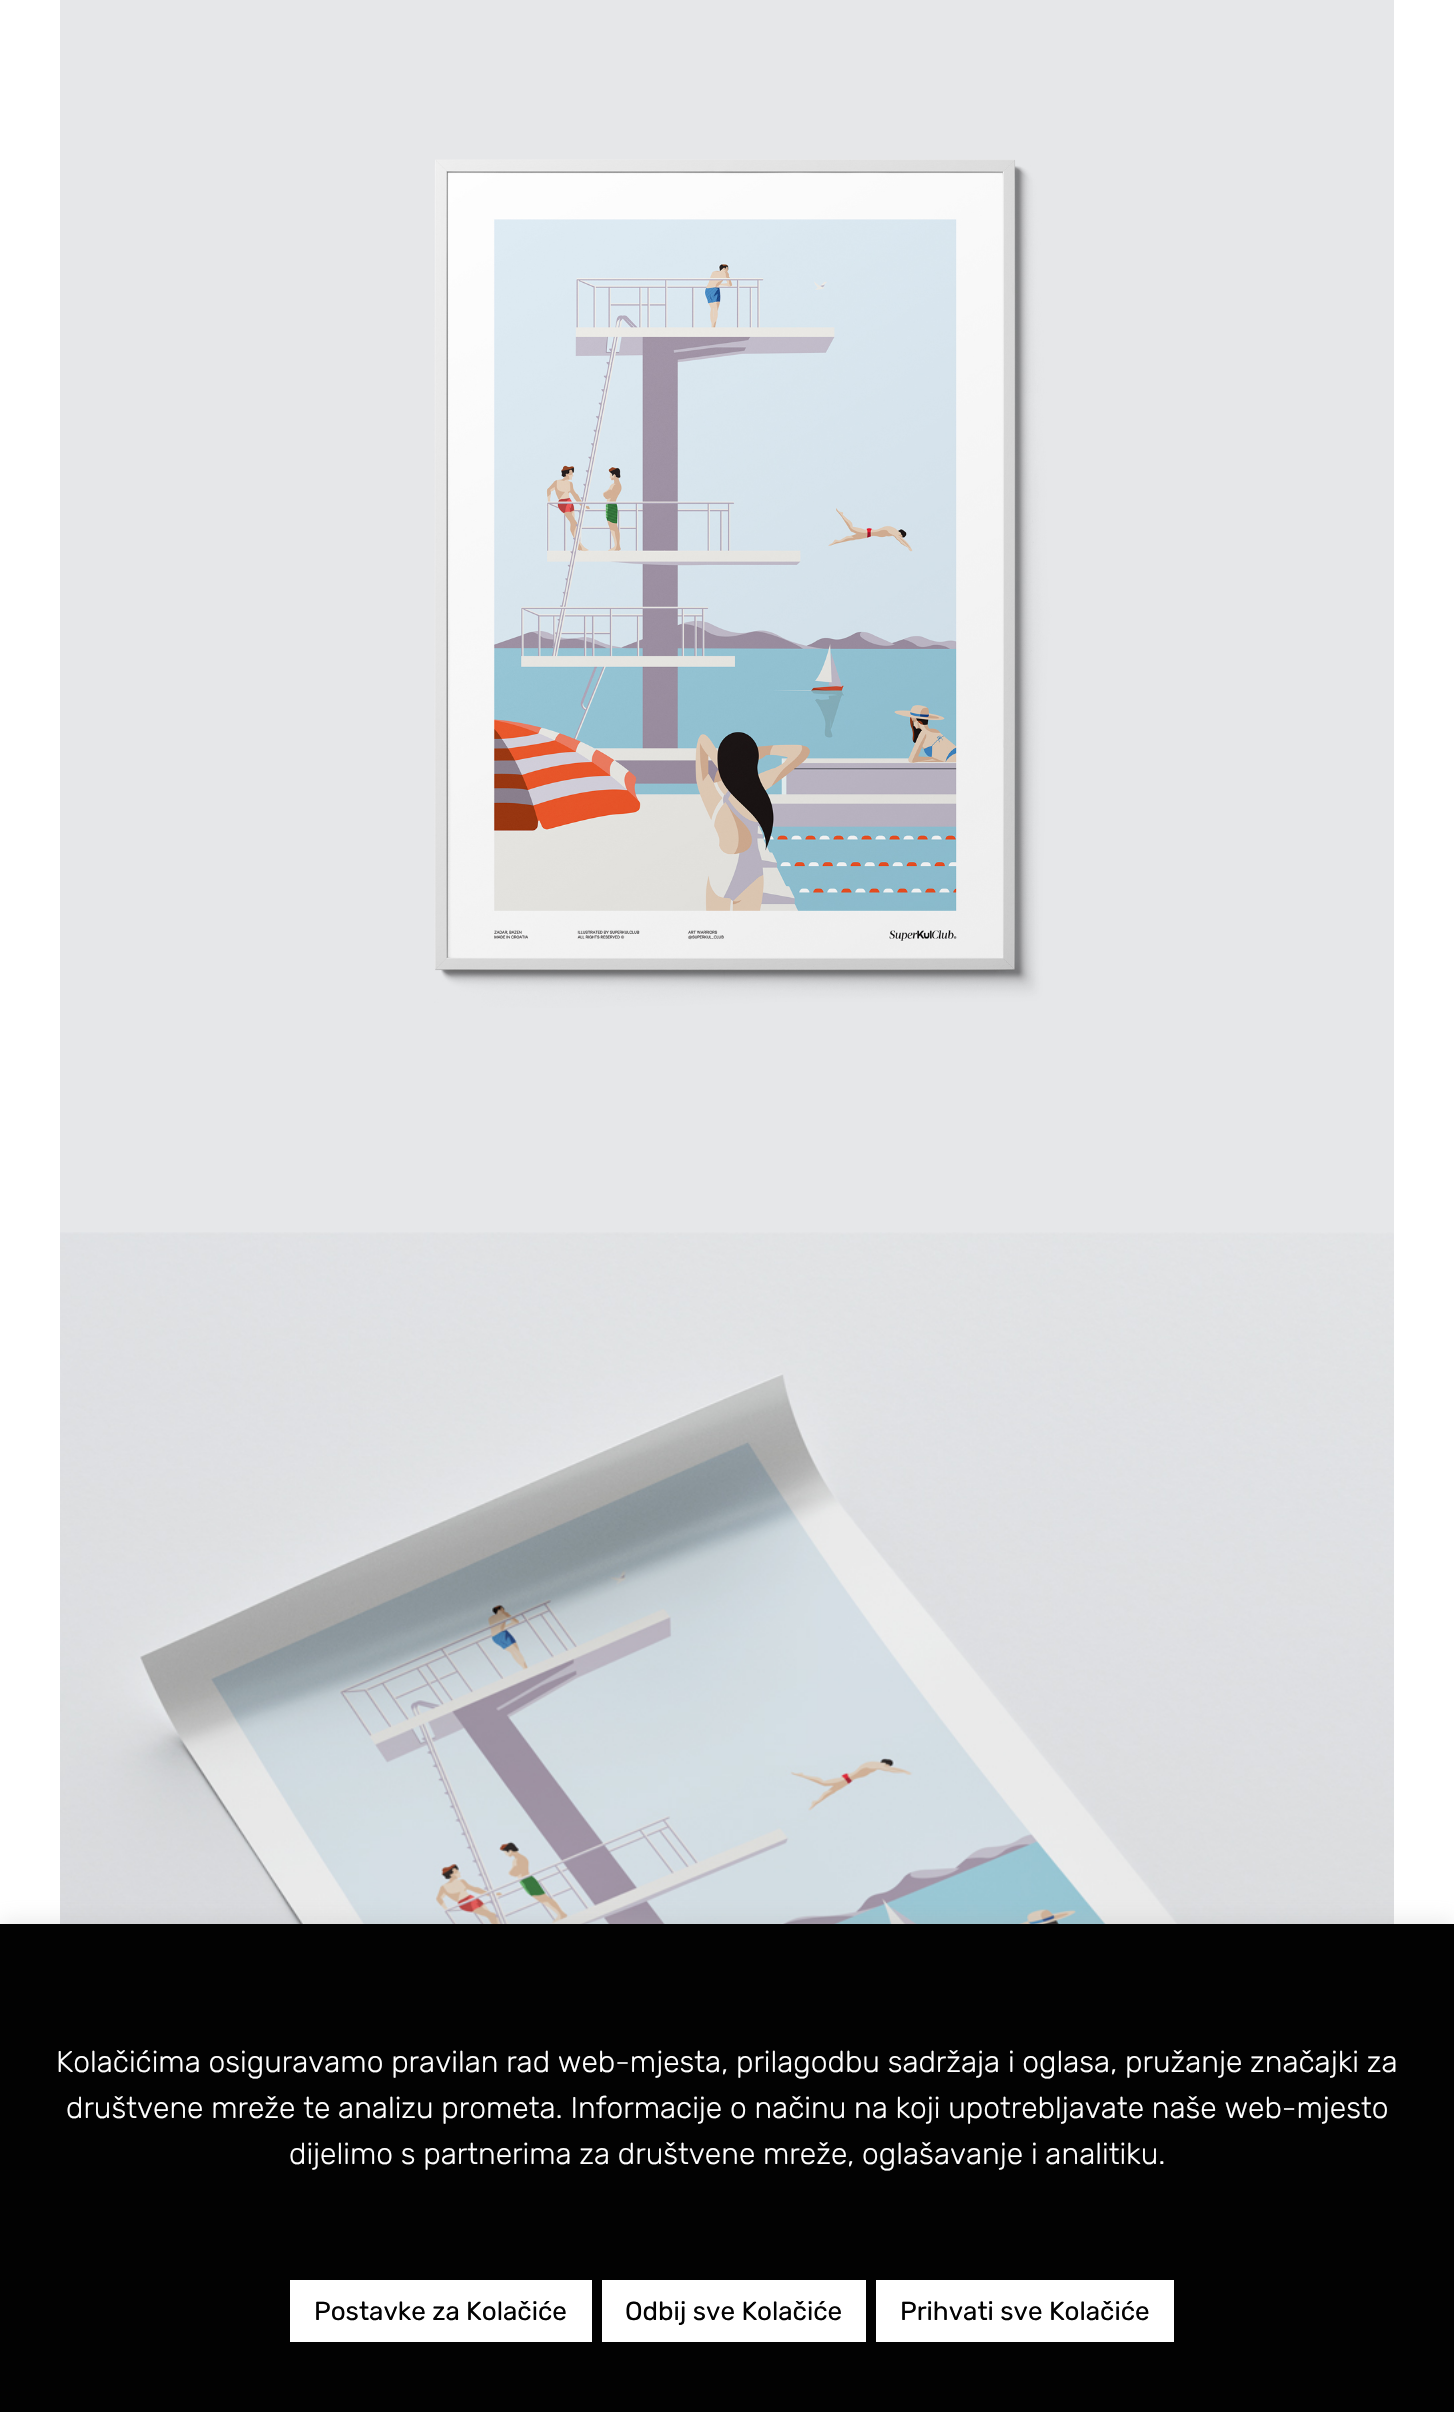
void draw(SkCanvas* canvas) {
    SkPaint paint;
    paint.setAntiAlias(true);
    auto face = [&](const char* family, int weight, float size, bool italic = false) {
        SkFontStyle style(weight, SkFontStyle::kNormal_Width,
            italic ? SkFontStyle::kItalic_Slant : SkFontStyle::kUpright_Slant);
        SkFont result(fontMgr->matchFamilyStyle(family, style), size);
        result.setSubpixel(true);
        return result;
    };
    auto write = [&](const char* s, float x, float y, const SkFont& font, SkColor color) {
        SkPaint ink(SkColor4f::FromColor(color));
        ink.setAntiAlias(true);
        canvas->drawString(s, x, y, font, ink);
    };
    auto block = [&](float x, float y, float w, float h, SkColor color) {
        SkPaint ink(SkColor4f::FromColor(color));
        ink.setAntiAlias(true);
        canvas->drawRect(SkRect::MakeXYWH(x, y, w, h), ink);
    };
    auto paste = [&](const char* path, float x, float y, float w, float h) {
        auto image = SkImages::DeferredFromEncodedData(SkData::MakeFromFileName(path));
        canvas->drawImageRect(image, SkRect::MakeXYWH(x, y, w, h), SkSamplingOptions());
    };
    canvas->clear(SK_ColorWHITE);
    paste("pic1.png", 60, 0, 1334, 1232);
    paste("pic2.png", 60, 1232, 1334, 692);
    paint.setColor(SkColorSetARGB(77, 172, 171, 171));
    paint.setMaskFilter(SkMaskFilter::MakeBlur(kNormal_SkBlurStyle, 10));
    canvas->drawRect(SkRect::MakeXYWH(0, 1922, 1454, 488), paint);
    paint.setMaskFilter(nullptr);
    block(0, 1924, 1454, 488, SkColorSetRGB(2, 2, 2));
    auto kFont1 = face("Rubik", 300, 30);
    write("Kolačićima osiguravamo pravilan rad web-mjesta, prilagodbu sadržaja i oglasa, pružanje značajki za", 56, 2072, kFont1, SK_ColorWHITE);
    write("društvene mreže te analizu prometa. Informacije o načinu na koji upotrebljavate naše web-mjesto", 66, 2118, kFont1, SK_ColorWHITE);
    write("dijelimo s partnerima za društvene mreže, oglašavanje i analitiku.", 289, 2164, kFont1, SK_ColorWHITE);
    block(290, 2280, 302, 62, SK_ColorWHITE);
    auto kFont2 = face("Rubik", 400, 26);
    write("Postavke za Kolačiće", 314, 2320, kFont2, SkColorSetRGB(2, 2, 2));
    block(602, 2280, 264, 62, SK_ColorWHITE);
    write("Odbij sve Kolačiće", 625, 2320, kFont2, SkColorSetRGB(2, 2, 2));
    block(876, 2280, 298, 62, SK_ColorWHITE);
    write("Prihvati sve Kolačiće", 900, 2320, kFont2, SkColorSetRGB(2, 2, 2));
}
